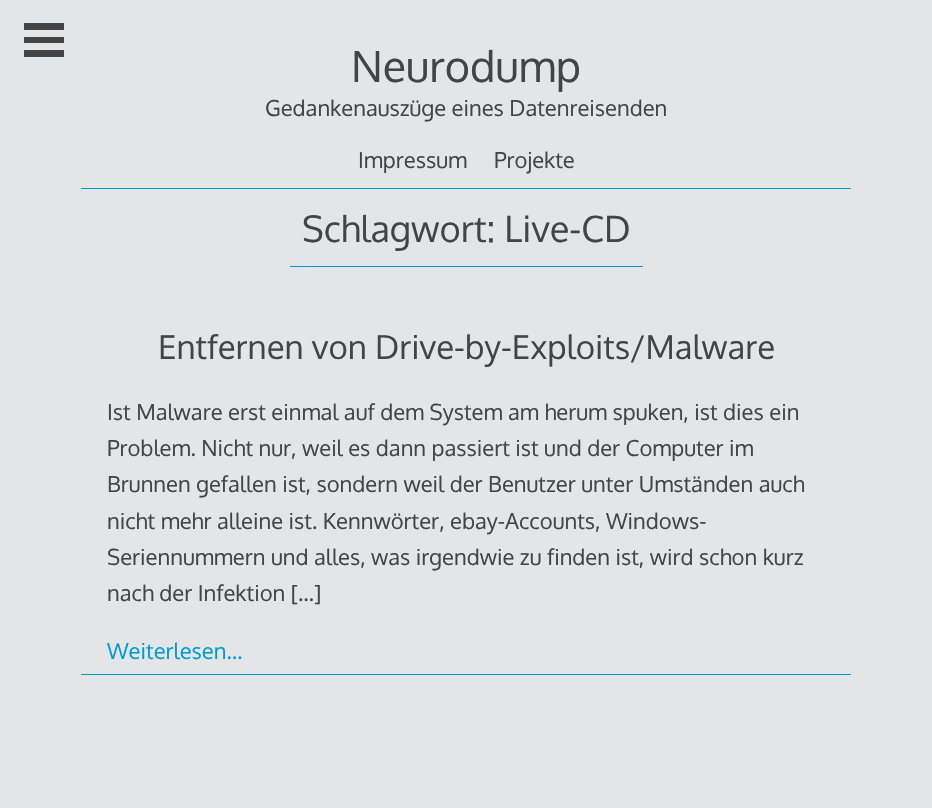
void draw(SkCanvas* canvas) {
    SkPaint paint;
    paint.setAntiAlias(true);
    auto face = [&](const char* family, int weight, float size, bool italic = false) {
        SkFontStyle style(weight, SkFontStyle::kNormal_Width,
            italic ? SkFontStyle::kItalic_Slant : SkFontStyle::kUpright_Slant);
        SkFont result(fontMgr->matchFamilyStyle(family, style), size);
        result.setSubpixel(true);
        return result;
    };
    auto write = [&](const char* s, float x, float y, const SkFont& font, SkColor color) {
        SkPaint ink(SkColor4f::FromColor(color));
        ink.setAntiAlias(true);
        canvas->drawString(s, x, y, font, ink);
    };
    auto block = [&](float x, float y, float w, float h, SkColor color) {
        SkPaint ink(SkColor4f::FromColor(color));
        ink.setAntiAlias(true);
        canvas->drawRect(SkRect::MakeXYWH(x, y, w, h), ink);
    };
    canvas->clear(SkColorSetRGB(227, 229, 231));
    block(24, 23, 40, 7, SkColorSetRGB(68, 68, 68));
    block(24, 37, 40, 6, SkColorSetRGB(68, 68, 68));
    block(24, 50, 40, 7, SkColorSetRGB(68, 68, 68));
    block(81, 188, 770, 1, SkColorSetRGB(0, 155, 205));
    auto kFont1 = face("Oxygen", 400, 43);
    write("Neurodump", 351, 82, kFont1, SkColorSetRGB(68, 68, 68));
    auto kFont2 = face("Oxygen", 400, 22);
    write("Gedankenauszüge eines Datenreisenden", 265, 116, kFont2, SkColorSetRGB(68, 68, 68));
    write("Impressum", 358, 168, kFont2, SkColorSetRGB(68, 68, 68));
    write("Projekte", 494, 168, kFont2, SkColorSetRGB(68, 68, 68));
    block(290, 266, 353, 1, SkColorSetRGB(0, 155, 205));
    auto kFont3 = face("Oxygen", 400, 36.25f);
    write("Schlagwort: Live-CD", 302, 242, kFont3, SkColorSetRGB(68, 68, 68));
    auto kFont4 = face("Oxygen", 400, 33);
    write("Entfernen von Drive-by-Exploits/Malware", 158, 359, kFont4, SkColorSetRGB(68, 68, 68));
    write("Ist Malware erst einmal auf dem System am herum spuken, ist dies ein", 107, 420, kFont2, SkColorSetRGB(68, 68, 68));
    write("Problem. Nicht nur, weil es dann passiert ist und der Computer im", 107, 456, kFont2, SkColorSetRGB(68, 68, 68));
    write("Brunnen gefallen ist, sondern weil der Benutzer unter Umständen auch", 107, 492, kFont2, SkColorSetRGB(68, 68, 68));
    write("nicht mehr alleine ist. Kennwörter, ebay-Accounts, Windows-", 107, 529, kFont2, SkColorSetRGB(68, 68, 68));
    write("Seriennummern und alles, was irgendwie zu finden ist, wird schon kurz", 107, 565, kFont2, SkColorSetRGB(68, 68, 68));
    write("nach der Infektion […]", 107, 601, kFont2, SkColorSetRGB(68, 68, 68));
    block(81, 674, 770, 1, SkColorSetRGB(0, 155, 205));
    write("Weiterlesen…", 107, 659, kFont2, SkColorSetRGB(0, 155, 205));
}
